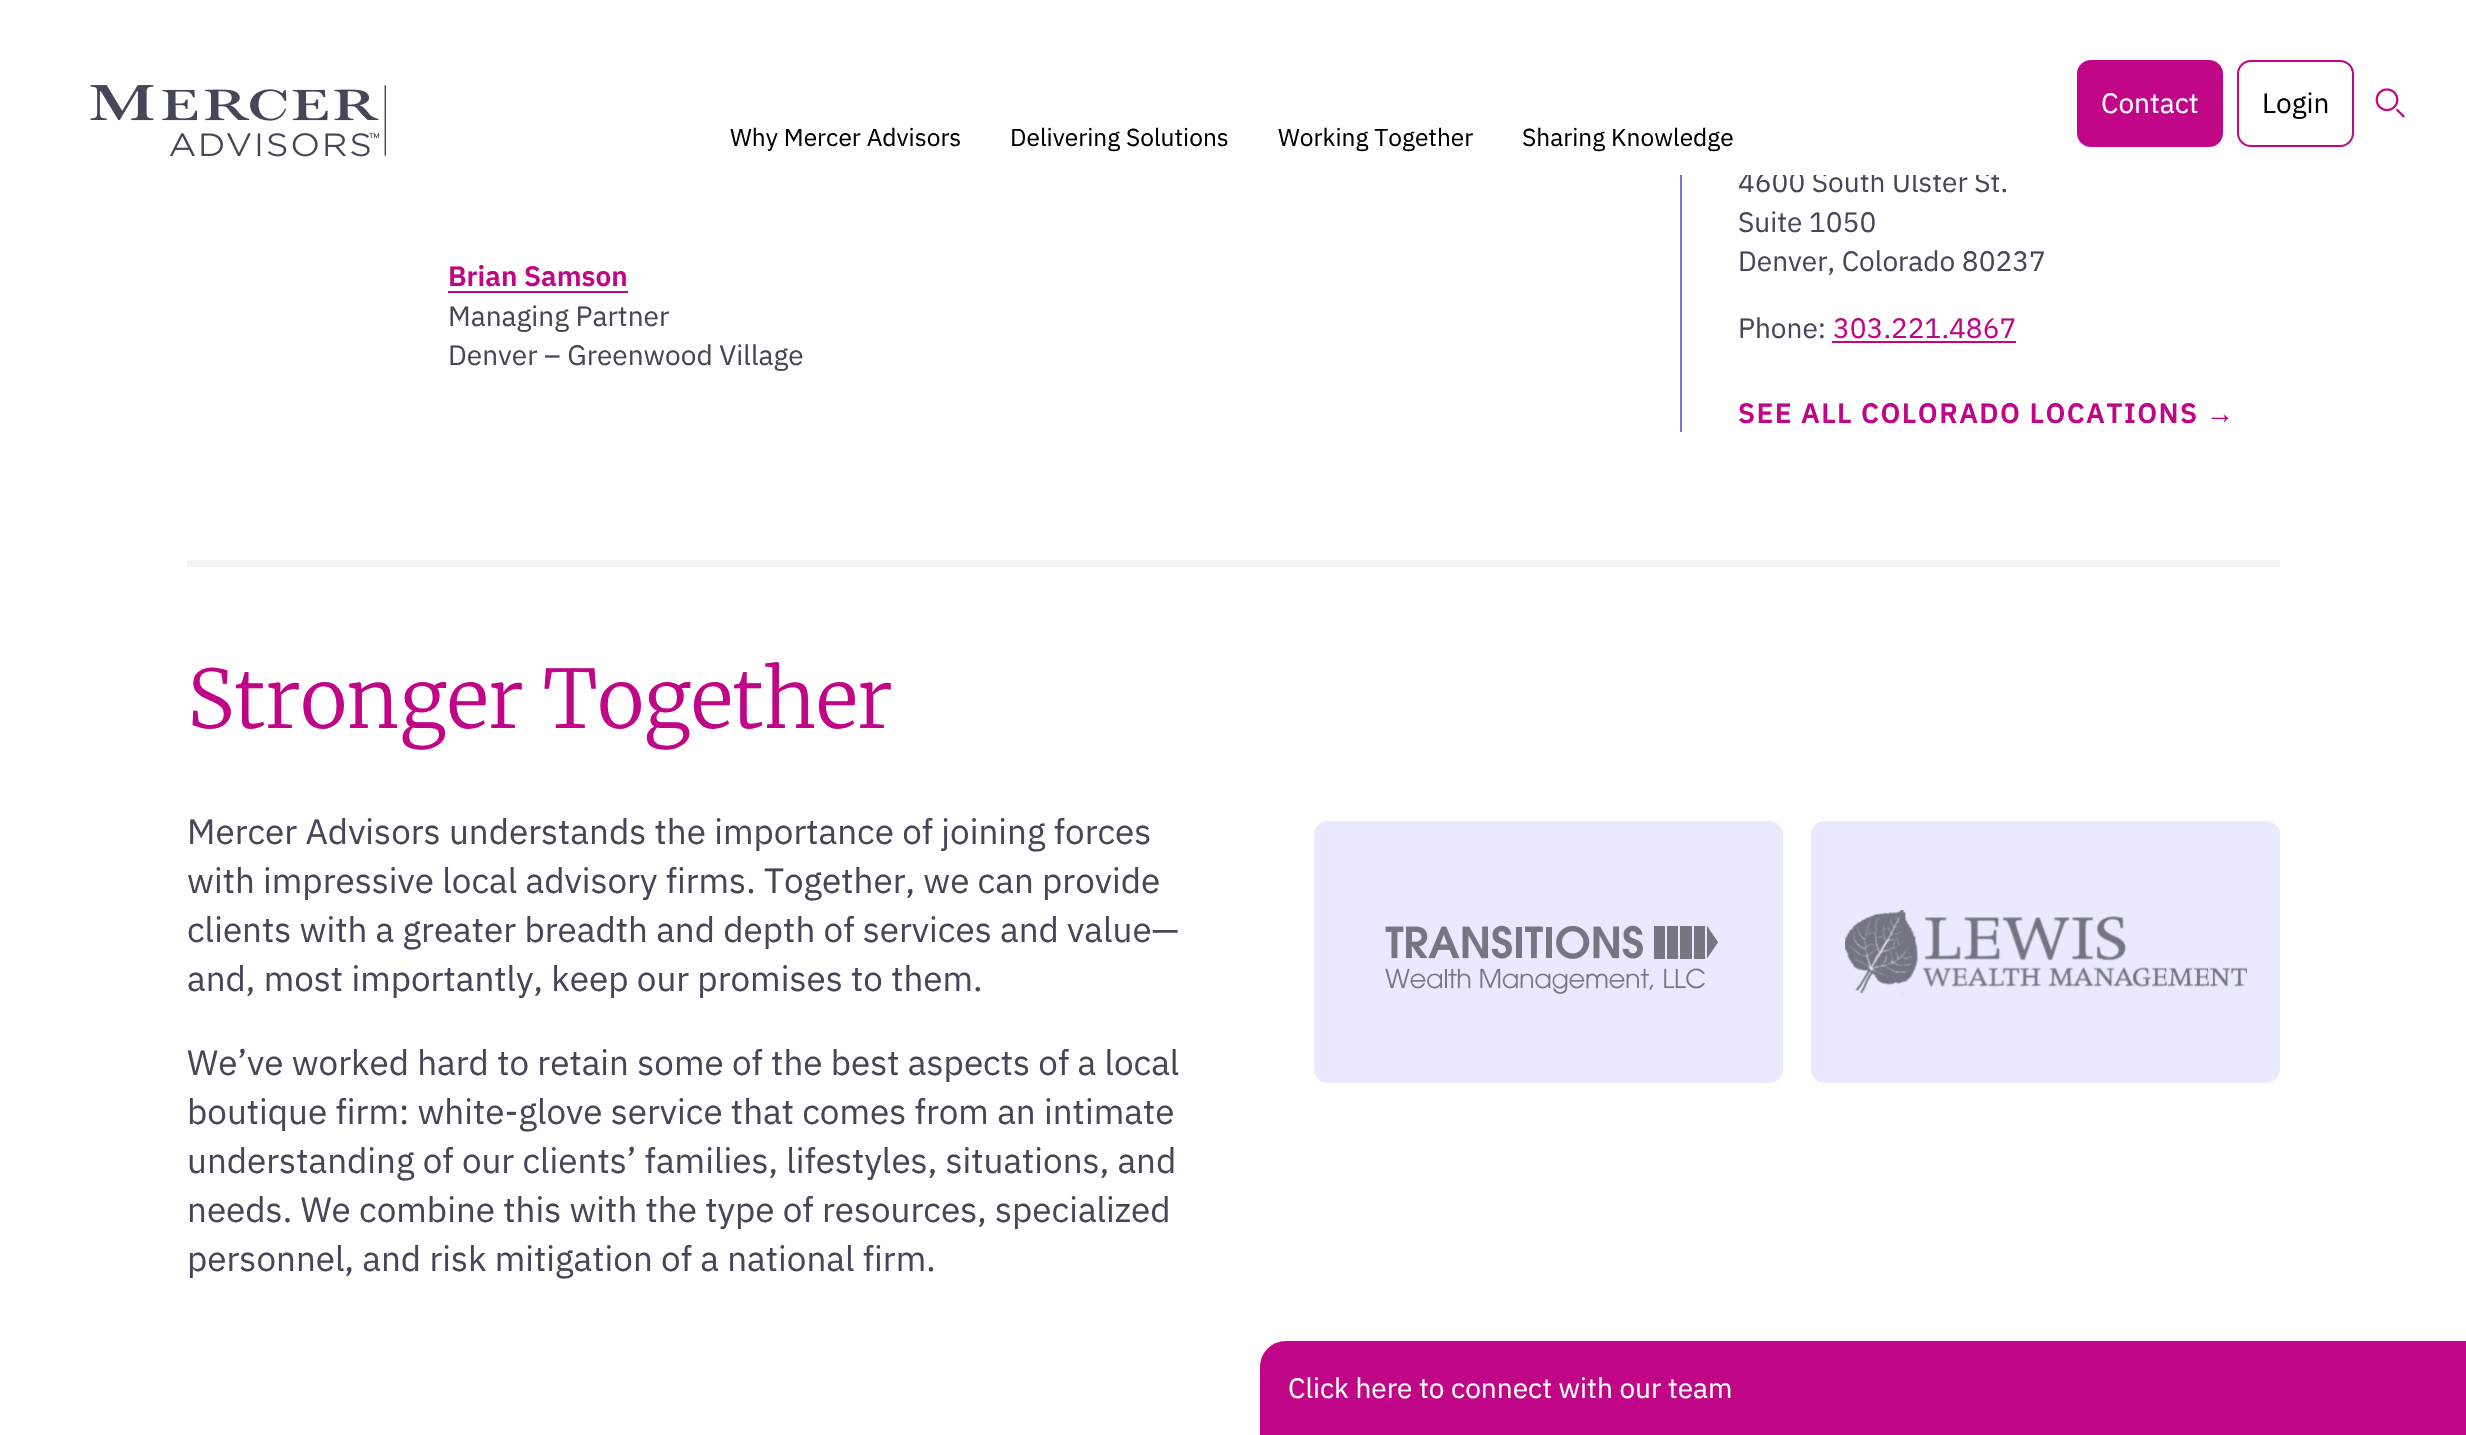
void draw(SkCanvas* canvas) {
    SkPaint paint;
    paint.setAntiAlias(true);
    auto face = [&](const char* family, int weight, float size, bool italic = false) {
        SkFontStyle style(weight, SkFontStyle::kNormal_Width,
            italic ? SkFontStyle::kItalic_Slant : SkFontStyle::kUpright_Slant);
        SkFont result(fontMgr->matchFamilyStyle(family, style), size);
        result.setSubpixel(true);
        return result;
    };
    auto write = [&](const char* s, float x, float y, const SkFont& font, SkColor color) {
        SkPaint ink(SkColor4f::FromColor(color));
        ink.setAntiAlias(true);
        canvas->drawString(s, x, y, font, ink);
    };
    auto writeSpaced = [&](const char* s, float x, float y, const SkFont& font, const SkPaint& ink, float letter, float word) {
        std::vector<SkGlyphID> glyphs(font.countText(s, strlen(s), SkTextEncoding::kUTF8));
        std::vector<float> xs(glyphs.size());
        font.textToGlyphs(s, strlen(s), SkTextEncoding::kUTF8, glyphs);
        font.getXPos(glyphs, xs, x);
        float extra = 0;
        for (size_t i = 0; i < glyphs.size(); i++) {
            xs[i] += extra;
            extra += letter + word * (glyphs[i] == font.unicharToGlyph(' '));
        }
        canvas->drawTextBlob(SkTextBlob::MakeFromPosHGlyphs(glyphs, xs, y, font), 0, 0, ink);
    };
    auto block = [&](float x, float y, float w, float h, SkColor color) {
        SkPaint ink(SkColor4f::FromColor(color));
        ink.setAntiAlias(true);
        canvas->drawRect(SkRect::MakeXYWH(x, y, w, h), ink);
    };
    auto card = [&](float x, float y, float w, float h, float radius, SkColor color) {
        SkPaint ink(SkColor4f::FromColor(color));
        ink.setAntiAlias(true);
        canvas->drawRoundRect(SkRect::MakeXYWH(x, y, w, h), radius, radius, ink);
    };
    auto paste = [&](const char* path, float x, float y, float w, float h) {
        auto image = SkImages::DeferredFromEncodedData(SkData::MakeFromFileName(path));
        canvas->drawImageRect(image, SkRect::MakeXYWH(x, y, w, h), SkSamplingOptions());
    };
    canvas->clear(SK_ColorWHITE);
    auto kFont1 = face("IBM Plex Sans", 400, 28);
    write("4600 South Ulster St.", 1738, 192, kFont1, SkColorSetRGB(69, 71, 89));
    block(1746, 171, 251, 4, SK_ColorWHITE);
    paste("pic1.png", 90, 85, 296, 72);
    paint.setColor(SkColorSetRGB(192, 6, 134));
    canvas->drawRoundRect(SkRect::MakeXYWH(2078, 61, 144, 85), 13, 13, paint);
    paint.setStyle(SkPaint::kStroke_Style);
    paint.setStrokeWidth(2);
    canvas->drawRoundRect(SkRect::MakeXYWH(2078, 61, 144, 85), 13, 13, paint);
    write("Contact", 2101, 113, kFont1, SK_ColorWHITE);
    canvas->drawRoundRect(SkRect::MakeXYWH(2238, 61, 115, 85), 13, 13, paint);
    write("Login", 2262, 113, kFont1, SK_ColorBLACK);
    paste("pic2.png", 2375, 88, 30, 30);
    auto kFont2 = face("IBM Plex Sans", 400, 24.5f);
    write("Why Mercer Advisors", 730, 146, kFont2, SK_ColorBLACK);
    write("Delivering Solutions", 1010, 146, kFont2, SK_ColorBLACK);
    write("Working Together", 1278, 146, kFont2, SK_ColorBLACK);
    write("Sharing Knowledge", 1522, 146, kFont2, SK_ColorBLACK);
    auto kFont3 = face("IBM Plex Sans", 600, 28);
    write("Brian Samson", 448, 286, kFont3, SkColorSetRGB(192, 6, 134));
    block(448, 291, 180, 2, SkColorSetRGB(192, 6, 134));
    write("Managing Partner", 448, 326, kFont1, SkColorSetRGB(69, 71, 89));
    write("Denver – Greenwood Village", 448, 365, kFont1, SkColorSetRGB(69, 71, 89));
    block(1680, 175, 2, 257, SkColorSetRGB(118, 115, 220));
    write("Suite 1050", 1738, 232, kFont1, SkColorSetRGB(69, 71, 89));
    write("Denver, Colorado 80237", 1738, 271, kFont1, SkColorSetRGB(69, 71, 89));
    write("Phone:", 1738, 338, kFont1, SkColorSetRGB(69, 71, 89));
    write("303.221.4867", 1833, 338, kFont1, SkColorSetRGB(192, 6, 134));
    block(1832, 341, 184, 2, SkColorSetRGB(192, 6, 134));
    paint.setStyle(SkPaint::kFill_Style);
    writeSpaced("SEE ALL COLORADO LOCATIONS", 1738, 423, kFont3, paint, 1.4f, 0);
    auto kFont4 = face("Liberation Sans", 700, 28);
    writeSpaced("→", 2206, 423, kFont4, paint, 1.4f, 0);
    block(187, 560, 2093, 7, SkColorSetRGB(243, 244, 246));
    auto kFont5 = face("Merriweather", 300, 80.5f);
    write("Stronger Together", 187, 728, kFont5, SkColorSetRGB(192, 6, 134));
    auto kFont6 = face("IBM Plex Sans", 400, 35);
    write("Mercer Advisors understands the importance of joining forces", 187, 844, kFont6, SkColorSetRGB(69, 71, 89));
    write("with impressive local advisory firms. Together, we can provide", 187, 893, kFont6, SkColorSetRGB(69, 71, 89));
    write("clients with a greater breadth and depth of services and value—", 187, 942, kFont6, SkColorSetRGB(69, 71, 89));
    write("and, most importantly, keep our promises to them.", 187, 991, kFont6, SkColorSetRGB(69, 71, 89));
    write("We’ve worked hard to retain some of the best aspects of a local", 187, 1075, kFont6, SkColorSetRGB(69, 71, 89));
    write("boutique firm: white-glove service that comes from an intimate", 187, 1124, kFont6, SkColorSetRGB(69, 71, 89));
    write("understanding of our clients’ families, lifestyles, situations, and", 187, 1173, kFont6, SkColorSetRGB(69, 71, 89));
    write("needs. We combine this with the type of resources, specialized", 187, 1222, kFont6, SkColorSetRGB(69, 71, 89));
    write("personnel, and risk mitigation of a national firm.", 187, 1271, kFont6, SkColorSetRGB(69, 71, 89));
    card(1314, 821, 469, 262, 14, SkColorSetRGB(233, 233, 255));
    paste("pic3.png", 1385, 925, 333, 69);
    card(1811, 821, 469, 262, 14, SkColorSetRGB(233, 233, 255));
    paste("pic4.png", 1845, 910, 402, 84);
    canvas->drawPath(SkPathBuilder().moveTo(1286, 1341).lineTo(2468, 1341).lineTo(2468, 1435).lineTo(1260, 1435).lineTo(1260, 1367).cubicTo(1260, 1352.5f, 1271.5f, 1341, 1286, 1341).close().detach(), paint);
    write("Click here to connect with our team", 1288, 1398, kFont1, SK_ColorWHITE);
}
